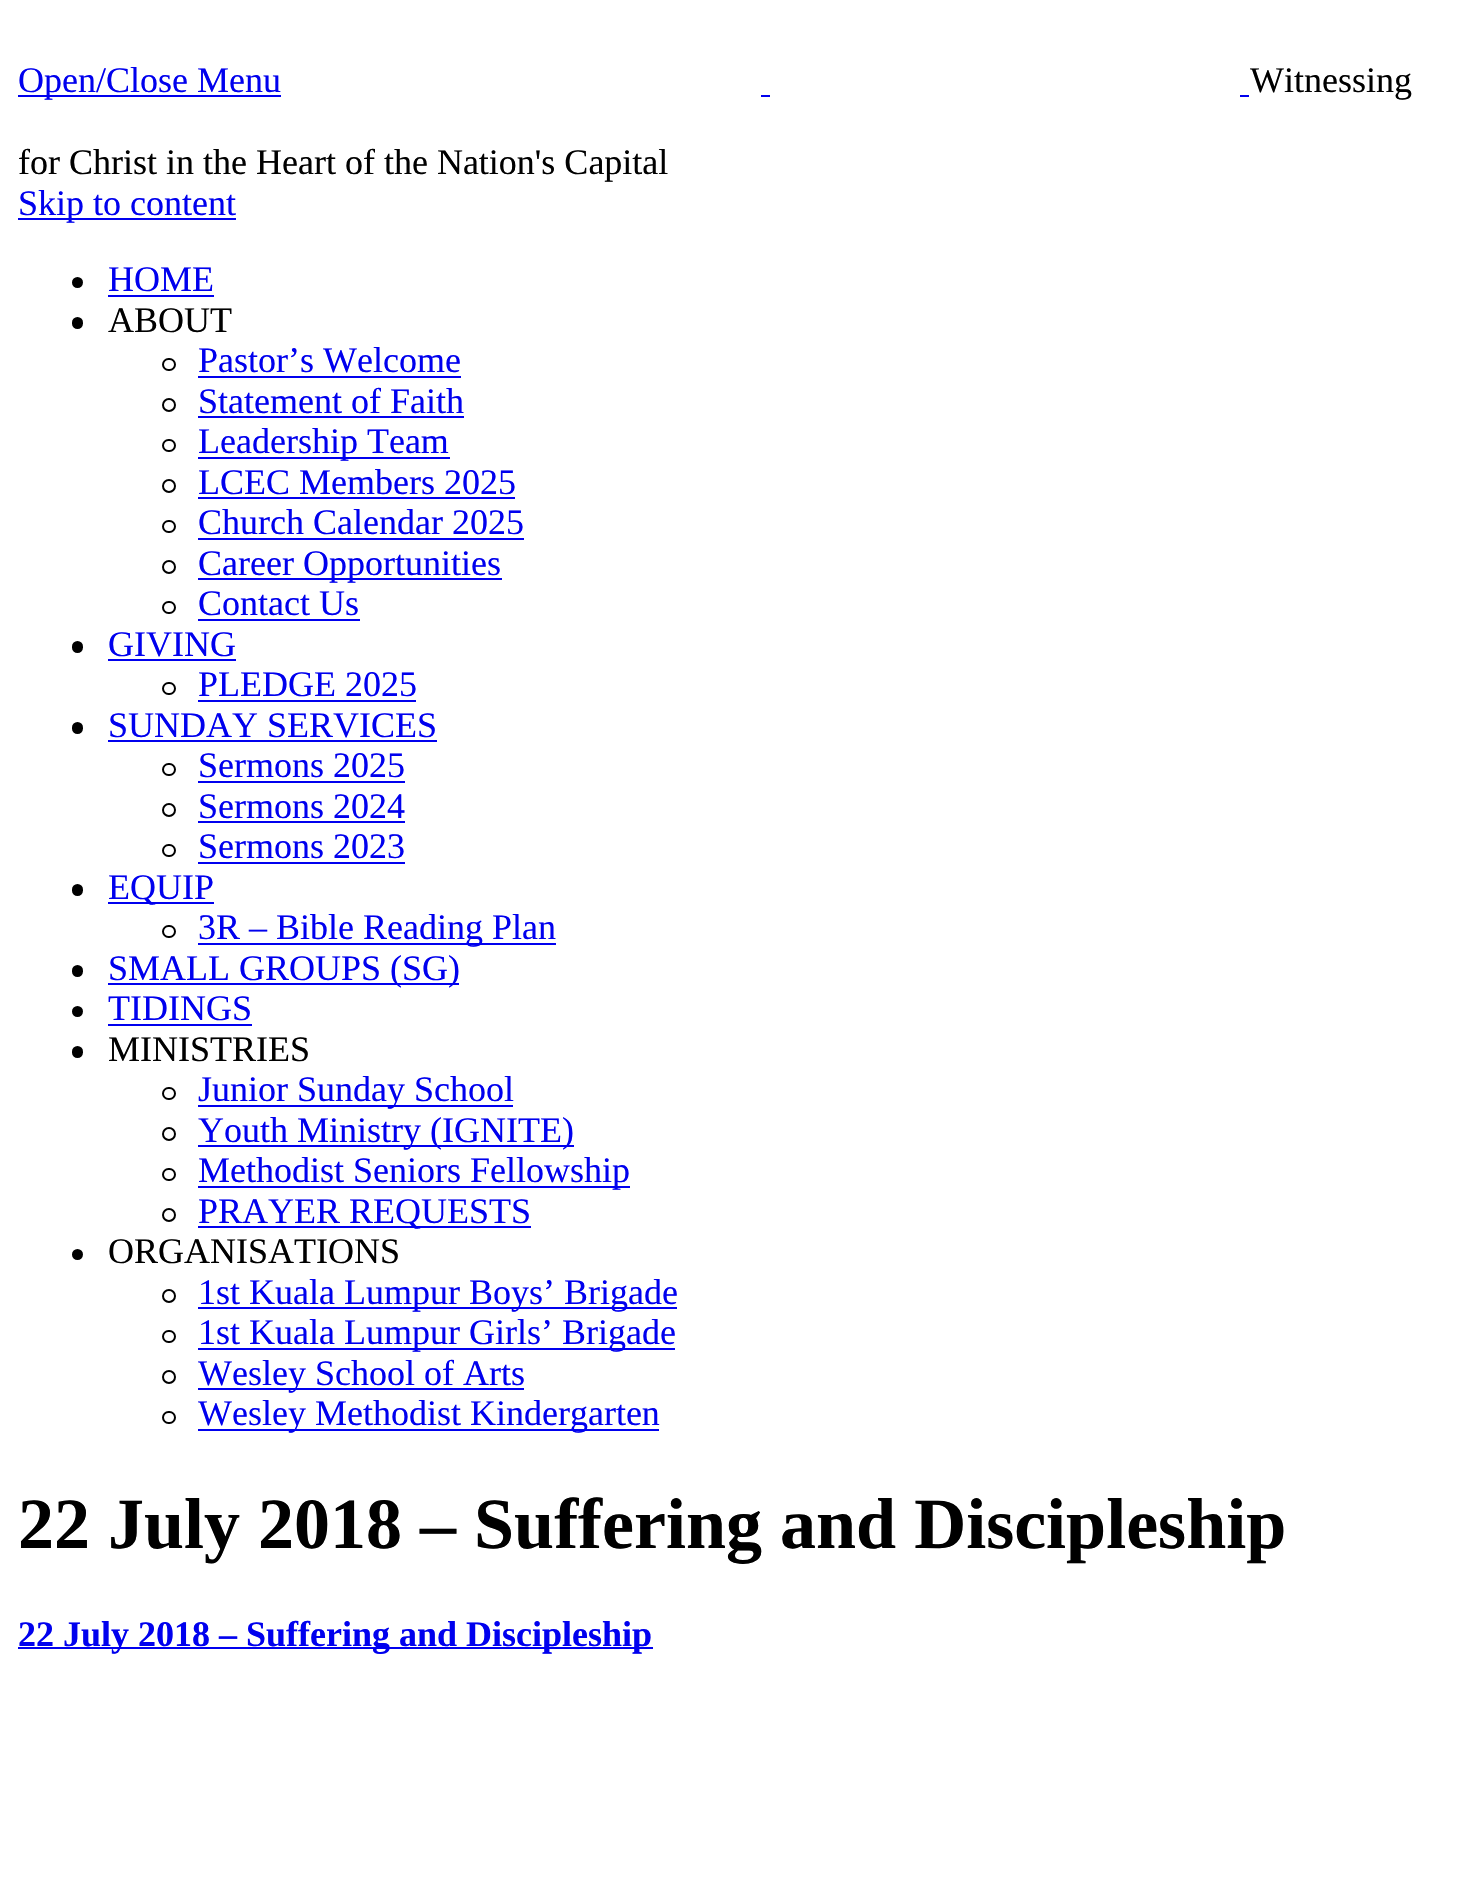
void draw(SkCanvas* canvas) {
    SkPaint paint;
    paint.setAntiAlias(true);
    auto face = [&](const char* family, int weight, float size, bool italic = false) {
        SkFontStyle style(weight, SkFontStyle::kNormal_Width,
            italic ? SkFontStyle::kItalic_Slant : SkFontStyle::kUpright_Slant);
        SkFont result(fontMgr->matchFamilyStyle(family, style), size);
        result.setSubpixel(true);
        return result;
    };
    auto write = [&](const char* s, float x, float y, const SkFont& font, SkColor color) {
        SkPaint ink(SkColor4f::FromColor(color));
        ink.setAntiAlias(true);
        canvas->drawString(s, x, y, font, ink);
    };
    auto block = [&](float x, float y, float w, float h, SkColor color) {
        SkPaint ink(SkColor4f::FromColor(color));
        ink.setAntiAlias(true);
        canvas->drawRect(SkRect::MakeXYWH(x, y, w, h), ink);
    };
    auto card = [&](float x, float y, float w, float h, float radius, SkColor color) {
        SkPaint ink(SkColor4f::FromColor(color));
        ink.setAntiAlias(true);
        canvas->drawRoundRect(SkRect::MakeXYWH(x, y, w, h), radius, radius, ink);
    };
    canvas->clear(SK_ColorWHITE);
    block(18, 95, 263, 2, SkColorSetRGB(0, 0, 238));
    auto kFont1 = face("Liberation Serif", 400, 36);
    write("Open/Close Menu", 18, 92, kFont1, SkColorSetRGB(0, 0, 238));
    block(761, 95, 9, 2, SkColorSetRGB(0, 0, 238));
    block(1240, 95, 9, 2, SkColorSetRGB(0, 0, 238));
    write("Witnessing", 1250, 92, kFont1, SK_ColorBLACK);
    write("for Christ in the Heart of the Nation's Capital", 18, 174, kFont1, SK_ColorBLACK);
    block(18, 218, 218, 2, SkColorSetRGB(0, 0, 238));
    write("Skip to content", 18, 215, kFont1, SkColorSetRGB(0, 0, 238));
    paint.setColor(SK_ColorBLACK);
    canvas->drawCircle(77.5f, 282.5f, 5.5f, paint);
    write("HОМЕ", 108, 291, kFont1, SkColorSetRGB(0, 0, 238));
    block(108, 295, 106, 2, SkColorSetRGB(0, 0, 238));
    card(72, 317, 11, 12, 5.5f, SK_ColorBLACK);
    write("ABOUT", 108, 332, kFont1, SK_ColorBLACK);
    paint.setStyle(SkPaint::kStroke_Style);
    paint.setStrokeWidth(2);
    canvas->drawRoundRect(SkRect::MakeXYWH(163, 359, 12, 11), 5.5f, 5.5f, paint);
    write("Pastor’s Welcome", 198, 372, kFont1, SkColorSetRGB(0, 0, 238));
    block(198, 376, 263, 2, SkColorSetRGB(0, 0, 238));
    canvas->drawCircle(169, 405, 6, paint);
    write("Statement of Faith", 198, 413, kFont1, SkColorSetRGB(0, 0, 238));
    block(198, 416, 266, 2, SkColorSetRGB(0, 0, 238));
    canvas->drawRoundRect(SkRect::MakeXYWH(163, 440, 12, 11), 5.5f, 5.5f, paint);
    block(198, 457, 252, 2, SkColorSetRGB(0, 0, 238));
    write("Leadership Team", 198, 453, kFont1, SkColorSetRGB(0, 0, 238));
    canvas->drawCircle(169, 486, 6, paint);
    write("LCEC Members 2025", 198, 494, kFont1, SkColorSetRGB(0, 0, 238));
    block(198, 497, 317, 2, SkColorSetRGB(0, 0, 238));
    canvas->drawRoundRect(SkRect::MakeXYWH(163, 521, 12, 11), 5.5f, 5.5f, paint);
    write("Church Calendar 2025", 198, 534, kFont1, SkColorSetRGB(0, 0, 238));
    block(198, 538, 326, 2, SkColorSetRGB(0, 0, 238));
    canvas->drawCircle(169, 567, 6, paint);
    block(198, 578, 304, 2, SkColorSetRGB(0, 0, 238));
    write("Career Opportunities", 198, 575, kFont1, SkColorSetRGB(0, 0, 238));
    canvas->drawRoundRect(SkRect::MakeXYWH(163, 602, 12, 11), 5.5f, 5.5f, paint);
    write("Contact Us", 198, 615, kFont1, SkColorSetRGB(0, 0, 238));
    block(198, 619, 162, 2, SkColorSetRGB(0, 0, 238));
    card(72, 641, 11, 12, 5.5f, SK_ColorBLACK);
    write("GIVING", 108, 656, kFont1, SkColorSetRGB(0, 0, 238));
    block(108, 659, 128, 2, SkColorSetRGB(0, 0, 238));
    canvas->drawRoundRect(SkRect::MakeXYWH(163, 683, 12, 11), 5.5f, 5.5f, paint);
    write("PLEDGE 2025", 198, 696, kFont1, SkColorSetRGB(0, 0, 238));
    block(198, 700, 218, 2, SkColorSetRGB(0, 0, 238));
    card(72, 722, 11, 12, 5.5f, SK_ColorBLACK);
    write("SUNDAY SERVICES", 108, 737, kFont1, SkColorSetRGB(0, 0, 238));
    block(108, 740, 329, 2, SkColorSetRGB(0, 0, 238));
    canvas->drawRoundRect(SkRect::MakeXYWH(163, 764, 12, 11), 5.5f, 5.5f, paint);
    write("Sermons 2025", 198, 777, kFont1, SkColorSetRGB(0, 0, 238));
    block(198, 781, 207, 2, SkColorSetRGB(0, 0, 238));
    canvas->drawCircle(169, 810, 6, paint);
    write("Sermons 2024", 198, 818, kFont1, SkColorSetRGB(0, 0, 238));
    block(198, 821, 207, 2, SkColorSetRGB(0, 0, 238));
    canvas->drawRoundRect(SkRect::MakeXYWH(163, 845, 12, 11), 5.5f, 5.5f, paint);
    write("Sermons 2023", 198, 858, kFont1, SkColorSetRGB(0, 0, 238));
    block(198, 862, 207, 2, SkColorSetRGB(0, 0, 238));
    card(72, 884, 11, 12, 5.5f, SK_ColorBLACK);
    block(108, 902, 106, 2, SkColorSetRGB(0, 0, 238));
    write("EQUIP", 108, 899, kFont1, SkColorSetRGB(0, 0, 238));
    canvas->drawRoundRect(SkRect::MakeXYWH(163, 926, 12, 11), 5.5f, 5.5f, paint);
    block(198, 943, 358, 2, SkColorSetRGB(0, 0, 238));
    write("3R – Bible Reading Plan", 198, 939, kFont1, SkColorSetRGB(0, 0, 238));
    card(72, 965, 11, 12, 5.5f, SK_ColorBLACK);
    block(108, 983, 351, 2, SkColorSetRGB(0, 0, 238));
    write("SMALL GROUPS (SG)", 108, 980, kFont1, SkColorSetRGB(0, 0, 238));
    paint.setStyle(SkPaint::kFill_Style);
    canvas->drawCircle(77.5f, 1011.5f, 5.5f, paint);
    write("TIDINGS", 108, 1020, kFont1, SkColorSetRGB(0, 0, 238));
    block(108, 1024, 144, 2, SkColorSetRGB(0, 0, 238));
    card(72, 1046, 11, 12, 5.5f, SK_ColorBLACK);
    write("MINISTRIES", 108, 1061, kFont1, SK_ColorBLACK);
    paint.setStyle(SkPaint::kStroke_Style);
    canvas->drawRoundRect(SkRect::MakeXYWH(163, 1088, 12, 11), 5.5f, 5.5f, paint);
    block(198, 1105, 315, 2, SkColorSetRGB(0, 0, 238));
    write("Junior Sunday School", 198, 1101, kFont1, SkColorSetRGB(0, 0, 238));
    canvas->drawCircle(169, 1134, 6, paint);
    block(198, 1145, 376, 2, SkColorSetRGB(0, 0, 238));
    write("Youth Ministry (IGNITE)", 198, 1142, kFont1, SkColorSetRGB(0, 0, 238));
    canvas->drawRoundRect(SkRect::MakeXYWH(163, 1169, 12, 11), 5.5f, 5.5f, paint);
    block(198, 1186, 432, 2, SkColorSetRGB(0, 0, 238));
    write("Methodist Seniors Fellowship", 198, 1182, kFont1, SkColorSetRGB(0, 0, 238));
    canvas->drawCircle(169, 1215, 6, paint);
    block(198, 1226, 333, 2, SkColorSetRGB(0, 0, 238));
    write("PRAYER REQUESTS", 198, 1223, kFont1, SkColorSetRGB(0, 0, 238));
    paint.setStyle(SkPaint::kFill_Style);
    canvas->drawCircle(77.5f, 1254.5f, 5.5f, paint);
    write("ORGANISATIONS", 108, 1263, kFont1, SK_ColorBLACK);
    paint.setStyle(SkPaint::kStroke_Style);
    canvas->drawCircle(169, 1296, 6, paint);
    block(198, 1307, 479, 2, SkColorSetRGB(0, 0, 238));
    write("1st Kuala Lumpur Boys’ Brigade", 198, 1304, kFont1, SkColorSetRGB(0, 0, 238));
    canvas->drawRoundRect(SkRect::MakeXYWH(163, 1331, 12, 11), 5.5f, 5.5f, paint);
    block(198, 1348, 477, 2, SkColorSetRGB(0, 0, 238));
    write("1st Kuala Lumpur Girls’ Brigade", 198, 1344, kFont1, SkColorSetRGB(0, 0, 238));
    canvas->drawCircle(169, 1377, 6, paint);
    block(198, 1388, 326, 2, SkColorSetRGB(0, 0, 238));
    write("Wesley School of Arts", 198, 1385, kFont1, SkColorSetRGB(0, 0, 238));
    canvas->drawRoundRect(SkRect::MakeXYWH(163, 1412, 12, 11), 5.5f, 5.5f, paint);
    block(198, 1429, 461, 2, SkColorSetRGB(0, 0, 238));
    write("Wesley Methodist Kindergarten", 198, 1425, kFont1, SkColorSetRGB(0, 0, 238));
    auto kFont2 = face("Liberation Serif", 700, 72);
    write("22 July 2018 – Suffering and Discipleship", 18, 1548, kFont2, SK_ColorBLACK);
    block(18, 1647, 635, 2, SkColorSetRGB(0, 0, 238));
    auto kFont3 = face("Liberation Serif", 700, 36);
    write("22 July 2018 – Suffering and Discipleship", 18, 1646, kFont3, SkColorSetRGB(0, 0, 238));
}
